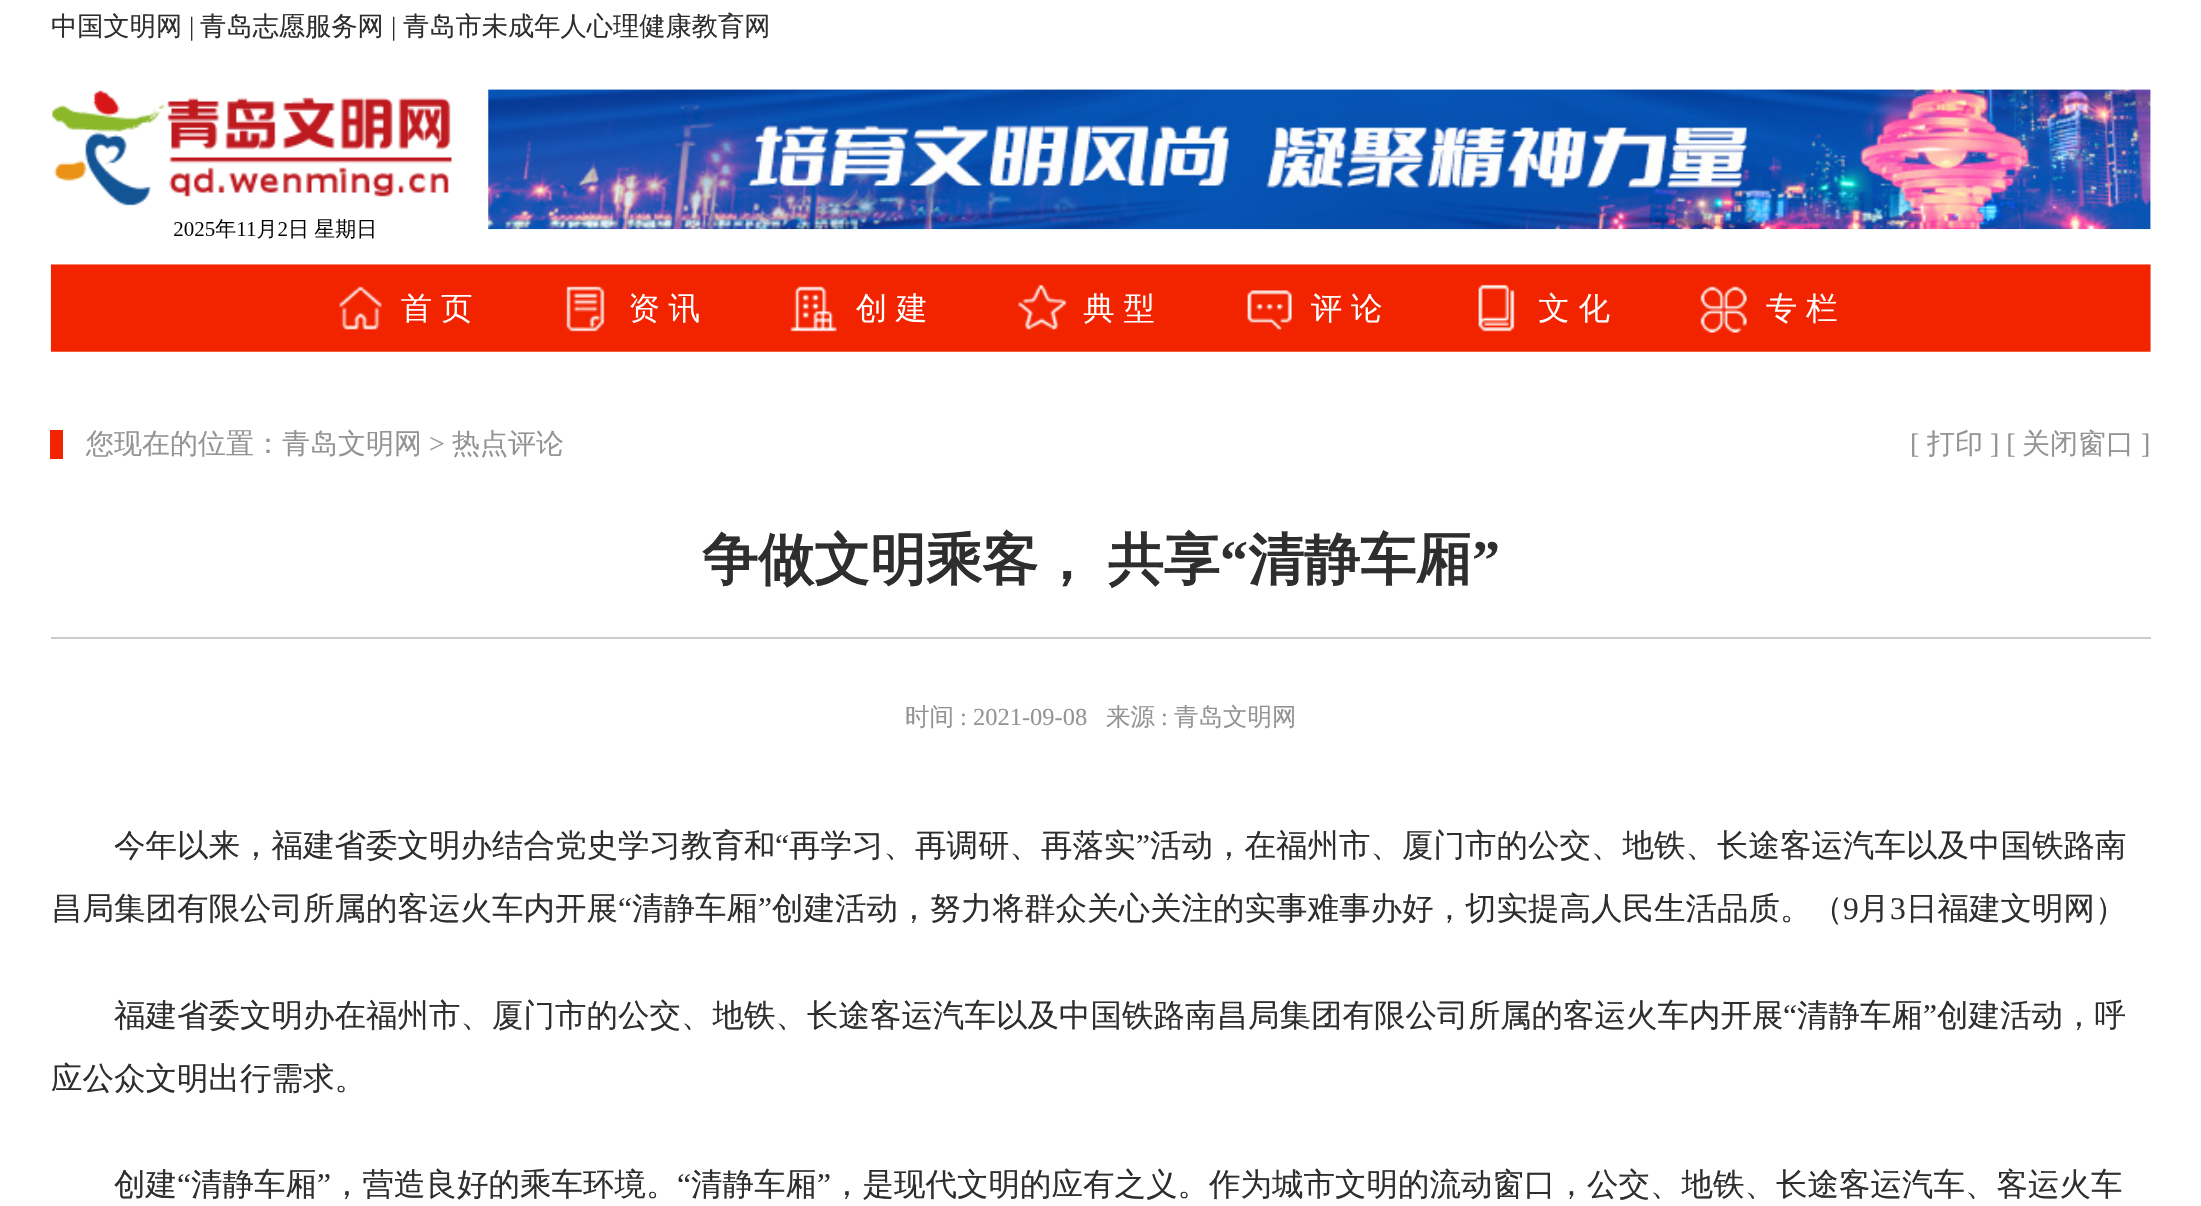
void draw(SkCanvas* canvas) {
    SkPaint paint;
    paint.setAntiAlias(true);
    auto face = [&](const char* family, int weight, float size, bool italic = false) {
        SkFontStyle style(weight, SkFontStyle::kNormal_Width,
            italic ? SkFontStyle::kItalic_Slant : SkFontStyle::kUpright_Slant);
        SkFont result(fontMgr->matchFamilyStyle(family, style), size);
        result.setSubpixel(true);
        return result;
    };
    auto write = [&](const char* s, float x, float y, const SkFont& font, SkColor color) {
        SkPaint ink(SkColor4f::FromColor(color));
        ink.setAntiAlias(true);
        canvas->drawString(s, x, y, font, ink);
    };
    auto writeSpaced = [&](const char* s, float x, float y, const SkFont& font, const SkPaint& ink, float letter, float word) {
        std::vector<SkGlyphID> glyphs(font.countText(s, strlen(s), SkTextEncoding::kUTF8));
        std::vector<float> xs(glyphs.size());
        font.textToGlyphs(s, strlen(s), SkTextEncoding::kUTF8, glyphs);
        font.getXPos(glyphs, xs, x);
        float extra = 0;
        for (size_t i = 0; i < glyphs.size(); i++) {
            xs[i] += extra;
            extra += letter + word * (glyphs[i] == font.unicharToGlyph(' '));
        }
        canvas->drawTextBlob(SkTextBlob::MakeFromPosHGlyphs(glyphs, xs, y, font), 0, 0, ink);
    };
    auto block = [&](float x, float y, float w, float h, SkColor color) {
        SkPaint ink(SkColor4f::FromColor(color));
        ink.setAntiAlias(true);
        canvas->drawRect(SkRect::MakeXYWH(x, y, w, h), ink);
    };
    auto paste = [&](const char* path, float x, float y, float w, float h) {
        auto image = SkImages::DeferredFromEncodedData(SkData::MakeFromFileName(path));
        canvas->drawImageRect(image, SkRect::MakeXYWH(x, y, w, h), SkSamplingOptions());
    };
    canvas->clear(SK_ColorWHITE);
    auto kFont1 = face("WenQuanYi Zen Hei", 500, 26.25f);
    write("中国文明网", 51, 35, kFont1, SkColorSetRGB(46, 46, 46));
    auto kFont2 = face("Liberation Serif", 400, 26.25f);
    write("|", 189, 35, kFont2, SkColorSetRGB(46, 46, 46));
    write("青岛志愿服务网", 200, 35, kFont1, SkColorSetRGB(46, 46, 46));
    write("|", 391, 35, kFont2, SkColorSetRGB(46, 46, 46));
    write("青岛市未成年人心理健康教育网", 403, 35, kFont1, SkColorSetRGB(46, 46, 46));
    paste("pic1.png", 50, 89, 2101, 263);
    block(50, 430, 13, 29, SkColorSetRGB(242, 36, 0));
    auto kFont3 = face("WenQuanYi Zen Hei", 500, 28);
    write("您现在的位置：青岛文明网", 86, 453, kFont3, SkColorSetRGB(148, 148, 148));
    auto kFont4 = face("Liberation Serif", 400, 28);
    write(">", 429, 453, kFont4, SkColorSetRGB(148, 148, 148));
    write("热点评论", 452, 453, kFont3, SkColorSetRGB(148, 148, 148));
    write("[", 1910, 453, kFont4, SkColorSetRGB(148, 148, 148));
    write("打印", 1927, 453, kFont3, SkColorSetRGB(148, 148, 148));
    write("] [", 1990, 453, kFont4, SkColorSetRGB(148, 148, 148));
    write("关闭窗口", 2022, 453, kFont3, SkColorSetRGB(148, 148, 148));
    write("]", 2141, 453, kFont4, SkColorSetRGB(148, 148, 148));
    block(51, 637, 2100, 2, SkColorSetRGB(204, 204, 204));
    auto kFont5 = face("WenQuanYi Zen Hei", 700, 56);
    paint.setColor(SkColorSetRGB(46, 46, 46));
    writeSpaced("争做文明乘客， 共享", 702, 579, kFont5, paint, 0, -3);
    auto kFont6 = face("Liberation Serif", 700, 56);
    write("“", 1220, 579, kFont6, SkColorSetRGB(46, 46, 46));
    write("清静车厢", 1248, 579, kFont5, SkColorSetRGB(46, 46, 46));
    write("”", 1472, 579, kFont6, SkColorSetRGB(46, 46, 46));
    auto kFont7 = face("WenQuanYi Zen Hei", 500, 24.5f);
    write("时间", 905, 725, kFont7, SkColorSetRGB(148, 148, 148));
    auto kFont8 = face("Liberation Serif", 400, 24.5f);
    write(": 2021-09-08", 960, 725, kFont8, SkColorSetRGB(148, 148, 148));
    write("来源", 1106, 725, kFont7, SkColorSetRGB(148, 148, 148));
    write(":", 1161, 725, kFont8, SkColorSetRGB(148, 148, 148));
    write("青岛文明网", 1174, 725, kFont7, SkColorSetRGB(148, 148, 148));
    auto kFont9 = face("WenQuanYi Zen Hei", 500, 31.5f);
    write("今年以来，福建省委文明办结合党史学习教育和", 114, 856, kFont9, SkColorSetRGB(46, 46, 46));
    auto kFont10 = face("Liberation Serif", 400, 31.5f);
    write("“", 775, 856, kFont10, SkColorSetRGB(46, 46, 46));
    write("再学习、再调研、再落实", 789, 856, kFont9, SkColorSetRGB(46, 46, 46));
    write("”", 1136, 856, kFont10, SkColorSetRGB(46, 46, 46));
    write("活动，在福州市、厦门市的公交、地铁、长途客运汽车以及中国铁路南", 1150, 856, kFont9, SkColorSetRGB(46, 46, 46));
    write("昌局集团有限公司所属的客运火车内开展", 51, 919, kFont9, SkColorSetRGB(46, 46, 46));
    write("“", 618, 919, kFont10, SkColorSetRGB(46, 46, 46));
    write("清静车厢", 632, 919, kFont9, SkColorSetRGB(46, 46, 46));
    write("”", 758, 919, kFont10, SkColorSetRGB(46, 46, 46));
    write("创建活动，努力将群众关心关注的实事难事办好，切实提高人民生活品质。（", 772, 919, kFont9, SkColorSetRGB(46, 46, 46));
    write("9", 1843, 919, kFont10, SkColorSetRGB(46, 46, 46));
    write("月", 1858, 919, kFont9, SkColorSetRGB(46, 46, 46));
    write("3", 1890, 919, kFont10, SkColorSetRGB(46, 46, 46));
    write("日福建文明网）", 1906, 919, kFont9, SkColorSetRGB(46, 46, 46));
    write("福建省委文明办在福州市、厦门市的公交、地铁、长途客运汽车以及中国铁路南昌局集团有限公司所属的客运火车内开展", 114, 1026, kFont9, SkColorSetRGB(46, 46, 46));
    write("“", 1783, 1026, kFont10, SkColorSetRGB(46, 46, 46));
    write("清静车厢", 1797, 1026, kFont9, SkColorSetRGB(46, 46, 46));
    write("”", 1923, 1026, kFont10, SkColorSetRGB(46, 46, 46));
    write("创建活动，呼", 1937, 1026, kFont9, SkColorSetRGB(46, 46, 46));
    write("应公众文明出行需求。", 51, 1089, kFont9, SkColorSetRGB(46, 46, 46));
    write("创建", 114, 1195, kFont9, SkColorSetRGB(46, 46, 46));
    write("“", 177, 1195, kFont10, SkColorSetRGB(46, 46, 46));
    write("清静车厢", 191, 1195, kFont9, SkColorSetRGB(46, 46, 46));
    write("”", 317, 1195, kFont10, SkColorSetRGB(46, 46, 46));
    write("，营造良好的乘车环境。", 331, 1195, kFont9, SkColorSetRGB(46, 46, 46));
    write("“", 677, 1195, kFont10, SkColorSetRGB(46, 46, 46));
    write("清静车厢", 691, 1195, kFont9, SkColorSetRGB(46, 46, 46));
    write("”", 817, 1195, kFont10, SkColorSetRGB(46, 46, 46));
    write("，是现代文明的应有之义。作为城市文明的流动窗口，公交、地铁、长途客运汽车、客运火车", 831, 1195, kFont9, SkColorSetRGB(46, 46, 46));
}
